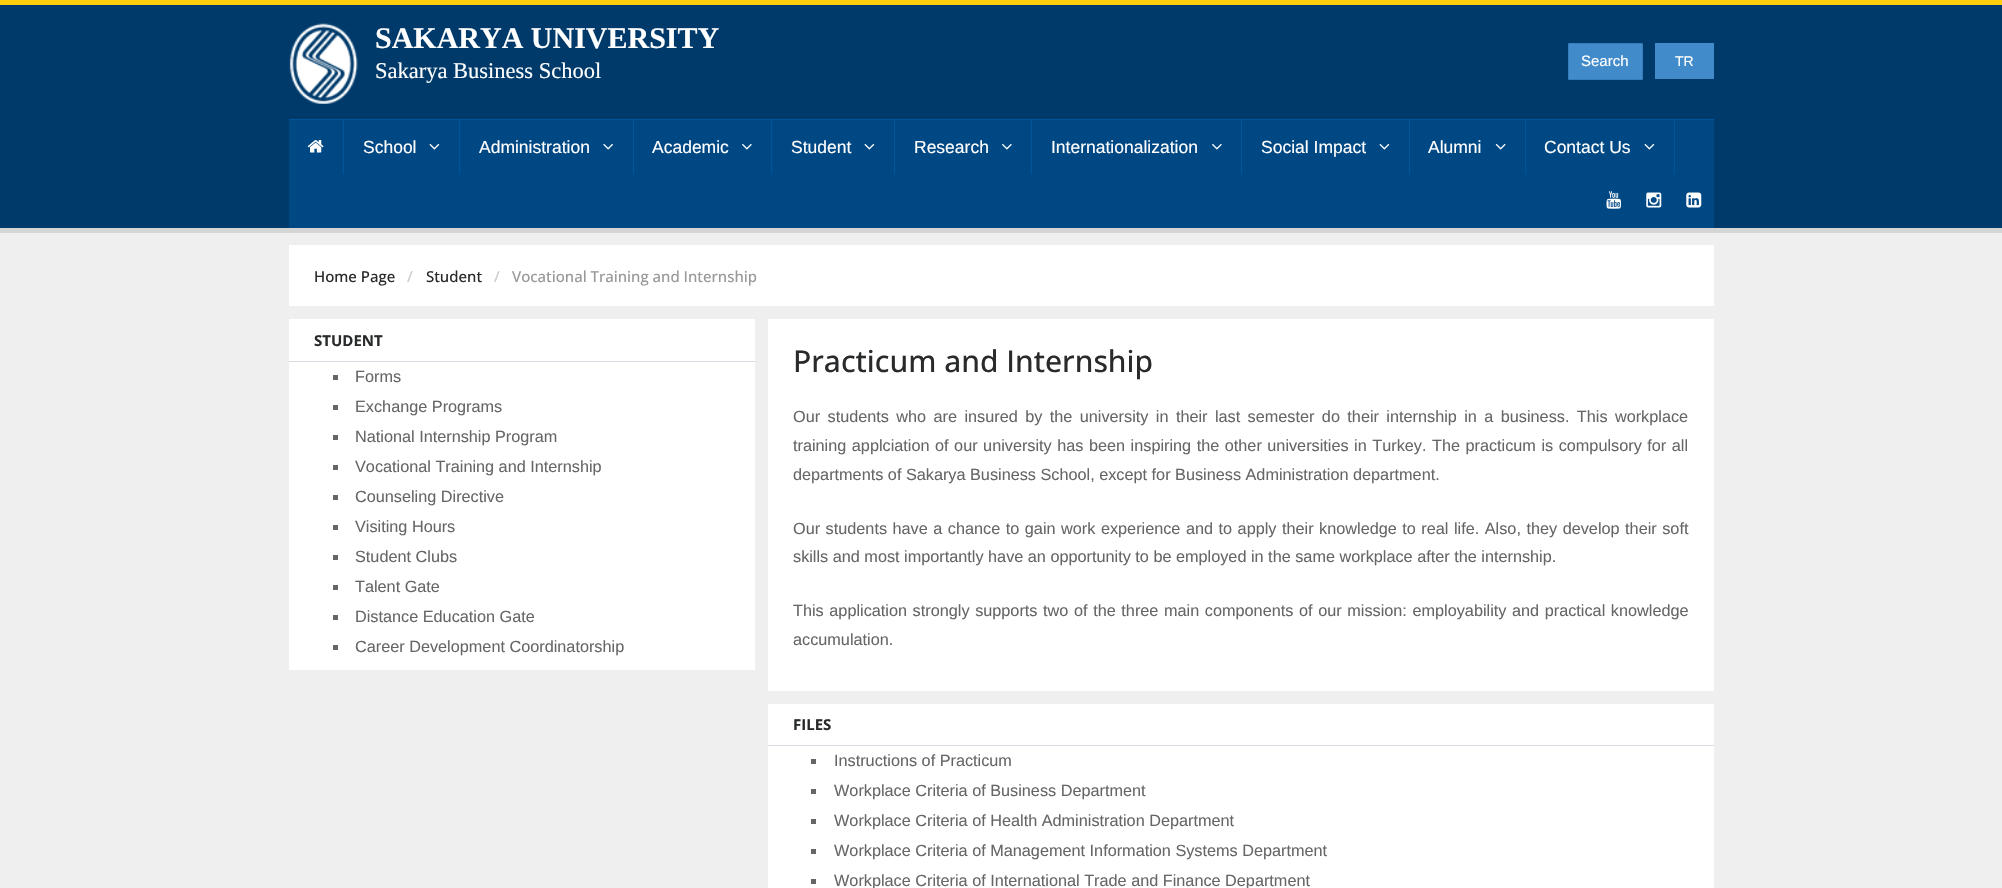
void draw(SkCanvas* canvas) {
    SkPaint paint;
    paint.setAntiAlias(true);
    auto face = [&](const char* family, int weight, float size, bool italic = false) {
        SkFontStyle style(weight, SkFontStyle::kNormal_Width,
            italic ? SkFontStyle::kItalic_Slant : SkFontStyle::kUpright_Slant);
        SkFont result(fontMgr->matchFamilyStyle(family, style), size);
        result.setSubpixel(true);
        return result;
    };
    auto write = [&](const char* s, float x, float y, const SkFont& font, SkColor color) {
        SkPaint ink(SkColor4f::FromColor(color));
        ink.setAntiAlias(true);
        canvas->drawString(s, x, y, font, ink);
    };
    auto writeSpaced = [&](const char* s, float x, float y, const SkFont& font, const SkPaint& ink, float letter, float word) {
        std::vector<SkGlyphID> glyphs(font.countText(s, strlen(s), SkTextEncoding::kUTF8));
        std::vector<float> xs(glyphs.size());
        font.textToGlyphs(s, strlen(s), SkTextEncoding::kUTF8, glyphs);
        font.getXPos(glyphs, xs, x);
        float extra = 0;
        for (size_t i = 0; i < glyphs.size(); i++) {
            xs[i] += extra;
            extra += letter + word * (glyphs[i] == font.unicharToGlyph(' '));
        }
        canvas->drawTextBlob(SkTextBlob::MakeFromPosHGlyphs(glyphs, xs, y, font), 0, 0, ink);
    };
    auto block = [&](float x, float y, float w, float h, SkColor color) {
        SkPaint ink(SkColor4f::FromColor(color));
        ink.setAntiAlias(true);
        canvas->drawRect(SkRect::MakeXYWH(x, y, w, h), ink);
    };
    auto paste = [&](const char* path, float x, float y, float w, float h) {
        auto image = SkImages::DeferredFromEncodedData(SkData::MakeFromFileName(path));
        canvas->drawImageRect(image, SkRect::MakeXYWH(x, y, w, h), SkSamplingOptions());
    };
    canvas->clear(SkColorSetRGB(239, 239, 239));
    block(0, 0, 2002, 5, SkColorSetRGB(254, 205, 11));
    block(0, 5, 2002, 223, SkColorSetRGB(0, 58, 106));
    block(0, 228, 2002, 5, SkColorSetRGB(213, 213, 213));
    paste("pic1.png", 289, 23, 69, 81);
    auto kFont1 = face("Liberation Serif", 700, 30);
    write("SAKARYA UNIVERSITY", 375, 48, kFont1, SK_ColorWHITE);
    auto kFont2 = face("Liberation Serif", 400, 22.5f);
    write("Sakarya Business School", 375, 78, kFont2, SK_ColorWHITE);
    paint.setColor(SkColorSetRGB(66, 139, 202));
    canvas->drawRoundRect(SkRect::MakeXYWH(1568.5f, 43.5f, 74, 36), 0.5f, 0.5f, paint);
    paint.setStyle(SkPaint::kStroke_Style);
    paint.setStrokeWidth(1);
    paint.setColor(SkColorSetRGB(53, 126, 189));
    canvas->drawRoundRect(SkRect::MakeXYWH(1568.5f, 43.5f, 74, 36), 0.5f, 0.5f, paint);
    auto kFont3 = face("Liberation Sans", 400, 15);
    write("Search", 1581, 66, kFont3, SK_ColorWHITE);
    block(1655, 43, 59, 36, SkColorSetRGB(66, 139, 202));
    auto kFont4 = face("Liberation Sans", 400, 14);
    write("TR", 1675, 66, kFont4, SK_ColorWHITE);
    block(289, 120, 1425, 108, SkColorSetRGB(0, 72, 132));
    block(289, 119, 1425, 1, SkColorSetRGB(0, 86, 157));
    block(343, 120, 1, 54, SkColorSetRGB(0, 86, 157));
    paste("pic2.png", 307, 140, 17, 13);
    block(459, 120, 1, 54, SkColorSetRGB(0, 86, 157));
    auto kFont5 = face("Liberation Sans", 400, 17.5f);
    write("School", 363, 153, kFont5, SK_ColorWHITE);
    paste("pic3.png", 429, 143, 11, 7);
    block(633, 120, 1, 54, SkColorSetRGB(0, 86, 157));
    write("Administration", 479, 153, kFont5, SK_ColorWHITE);
    paste("pic4.png", 603, 143, 10, 7);
    block(771, 120, 1, 54, SkColorSetRGB(0, 86, 157));
    write("Academic", 652, 153, kFont5, SK_ColorWHITE);
    paste("pic5.png", 742, 143, 10, 7);
    block(894, 120, 1, 54, SkColorSetRGB(0, 86, 157));
    write("Student", 791, 153, kFont5, SK_ColorWHITE);
    paste("pic3.png", 864, 143, 11, 7);
    block(1031, 120, 1, 54, SkColorSetRGB(0, 86, 157));
    write("Research", 914, 153, kFont5, SK_ColorWHITE);
    paste("pic5.png", 1002, 143, 10, 7);
    block(1241, 120, 1, 54, SkColorSetRGB(0, 86, 157));
    write("Internationalization", 1051, 153, kFont5, SK_ColorWHITE);
    paste("pic5.png", 1212, 143, 10, 7);
    block(1409, 120, 1, 54, SkColorSetRGB(0, 86, 157));
    write("Social Impact", 1261, 153, kFont5, SK_ColorWHITE);
    paste("pic3.png", 1379, 143, 11, 7);
    block(1525, 120, 1, 54, SkColorSetRGB(0, 86, 157));
    write("Alumni", 1428, 153, kFont5, SK_ColorWHITE);
    paste("pic6.png", 1495, 143, 11, 7);
    block(1674, 120, 1, 54, SkColorSetRGB(0, 86, 157));
    write("Contact Us", 1544, 153, kFont5, SK_ColorWHITE);
    paste("pic3.png", 1644, 143, 11, 7);
    paste("pic7.png", 1606, 191, 15, 18);
    paste("pic8.png", 1646, 192, 16, 16);
    paste("pic9.png", 1686, 192, 16, 16);
    block(289, 245, 1425, 61, SK_ColorWHITE);
    auto kFont6 = face("Open Sans", 500, 15);
    write("Home Page", 314, 282, kFont6, SkColorSetRGB(40, 42, 44));
    write("/", 407, 282, kFont6, SkColorSetRGB(204, 204, 204));
    write("Student", 426, 282, kFont6, SkColorSetRGB(40, 42, 44));
    write("/", 494, 282, kFont6, SkColorSetRGB(204, 204, 204));
    write("Vocational Training and Internship", 512, 282, kFont6, SkColorSetRGB(153, 153, 153));
    block(289, 319, 466, 351, SK_ColorWHITE);
    block(289, 361, 466, 1, SkColorSetRGB(214, 220, 225));
    auto kFont7 = face("Open Sans", 700, 15);
    write("STUDENT", 314, 346, kFont7, SkColorSetRGB(40, 42, 44));
    block(333, 375, 5, 5, SkColorSetRGB(102, 102, 102));
    auto kFont8 = face("Liberation Sans", 400, 16.25f);
    write("Forms", 355, 382, kFont8, SkColorSetRGB(102, 102, 102));
    block(333, 405, 5, 5, SkColorSetRGB(102, 102, 102));
    write("Exchange Programs", 355, 412, kFont8, SkColorSetRGB(102, 102, 102));
    block(333, 435, 5, 5, SkColorSetRGB(102, 102, 102));
    write("National Internship Program", 355, 442, kFont8, SkColorSetRGB(102, 102, 102));
    block(333, 465, 5, 5, SkColorSetRGB(102, 102, 102));
    write("Vocational Training and Internship", 355, 472, kFont8, SkColorSetRGB(102, 102, 102));
    block(333, 495, 5, 5, SkColorSetRGB(102, 102, 102));
    write("Counseling Directive", 355, 502, kFont8, SkColorSetRGB(102, 102, 102));
    block(333, 525, 5, 5, SkColorSetRGB(102, 102, 102));
    write("Visiting Hours", 355, 532, kFont8, SkColorSetRGB(102, 102, 102));
    block(333, 555, 5, 5, SkColorSetRGB(102, 102, 102));
    write("Student Clubs", 355, 562, kFont8, SkColorSetRGB(102, 102, 102));
    block(333, 585, 5, 5, SkColorSetRGB(102, 102, 102));
    write("Talent Gate", 355, 592, kFont8, SkColorSetRGB(102, 102, 102));
    block(333, 615, 5, 5, SkColorSetRGB(102, 102, 102));
    write("Distance Education Gate", 355, 622, kFont8, SkColorSetRGB(102, 102, 102));
    block(333, 645, 5, 5, SkColorSetRGB(102, 102, 102));
    write("Career Development Coordinatorship", 355, 652, kFont8, SkColorSetRGB(102, 102, 102));
    block(768, 319, 946, 372, SK_ColorWHITE);
    auto kFont9 = face("Open Sans", 500, 30);
    write("Practicum and Internship", 793, 372, kFont9, SkColorSetRGB(40, 42, 44));
    paint.setStyle(SkPaint::kFill_Style);
    paint.setColor(SkColorSetRGB(102, 102, 102));
    writeSpaced("Our students who are insured by the university in their last semester do their internship in a business. This workplace", 793, 422, kFont8, paint, 0, 2.9f);
    writeSpaced("training applciation of our university has been inspiring the other universities in Turkey. The practicum is compulsory for all", 793, 451, kFont8, paint, 0, 1);
    write("departments of Sakarya Business School, except for Business Administration department.", 793, 480, kFont8, SkColorSetRGB(102, 102, 102));
    writeSpaced("Our students have a chance to gain work experience and to apply their knowledge to real life. Also, they develop their soft", 793, 534, kFont8, paint, 0, 1);
    write("skills and most importantly have an opportunity to be employed in the same workplace after the internship.", 793, 562, kFont8, SkColorSetRGB(102, 102, 102));
    writeSpaced("This application strongly supports two of the three main components of our mission: employability and practical knowledge", 793, 616, kFont8, paint, 0, 1.1f);
    write("accumulation.", 793, 645, kFont8, SkColorSetRGB(102, 102, 102));
    block(768, 704, 946, 184, SK_ColorWHITE);
    block(768, 745, 946, 1, SkColorSetRGB(214, 220, 225));
    write("FILES", 793, 730, kFont7, SkColorSetRGB(40, 42, 44));
    block(811, 759, 5, 5, SkColorSetRGB(102, 102, 102));
    write("Instructions of Practicum", 834, 766, kFont8, SkColorSetRGB(102, 102, 102));
    block(811, 789, 5, 5, SkColorSetRGB(102, 102, 102));
    write("Workplace Criteria of Business Department", 834, 796, kFont8, SkColorSetRGB(102, 102, 102));
    block(811, 819, 5, 5, SkColorSetRGB(102, 102, 102));
    write("Workplace Criteria of Health Administration Department", 834, 826, kFont8, SkColorSetRGB(102, 102, 102));
    block(811, 849, 5, 5, SkColorSetRGB(102, 102, 102));
    write("Workplace Criteria of Management Information Systems Department", 834, 856, kFont8, SkColorSetRGB(102, 102, 102));
    block(811, 879, 5, 5, SkColorSetRGB(102, 102, 102));
    write("Workplace Criteria of International Trade and Finance Department", 834, 886, kFont8, SkColorSetRGB(102, 102, 102));
}
